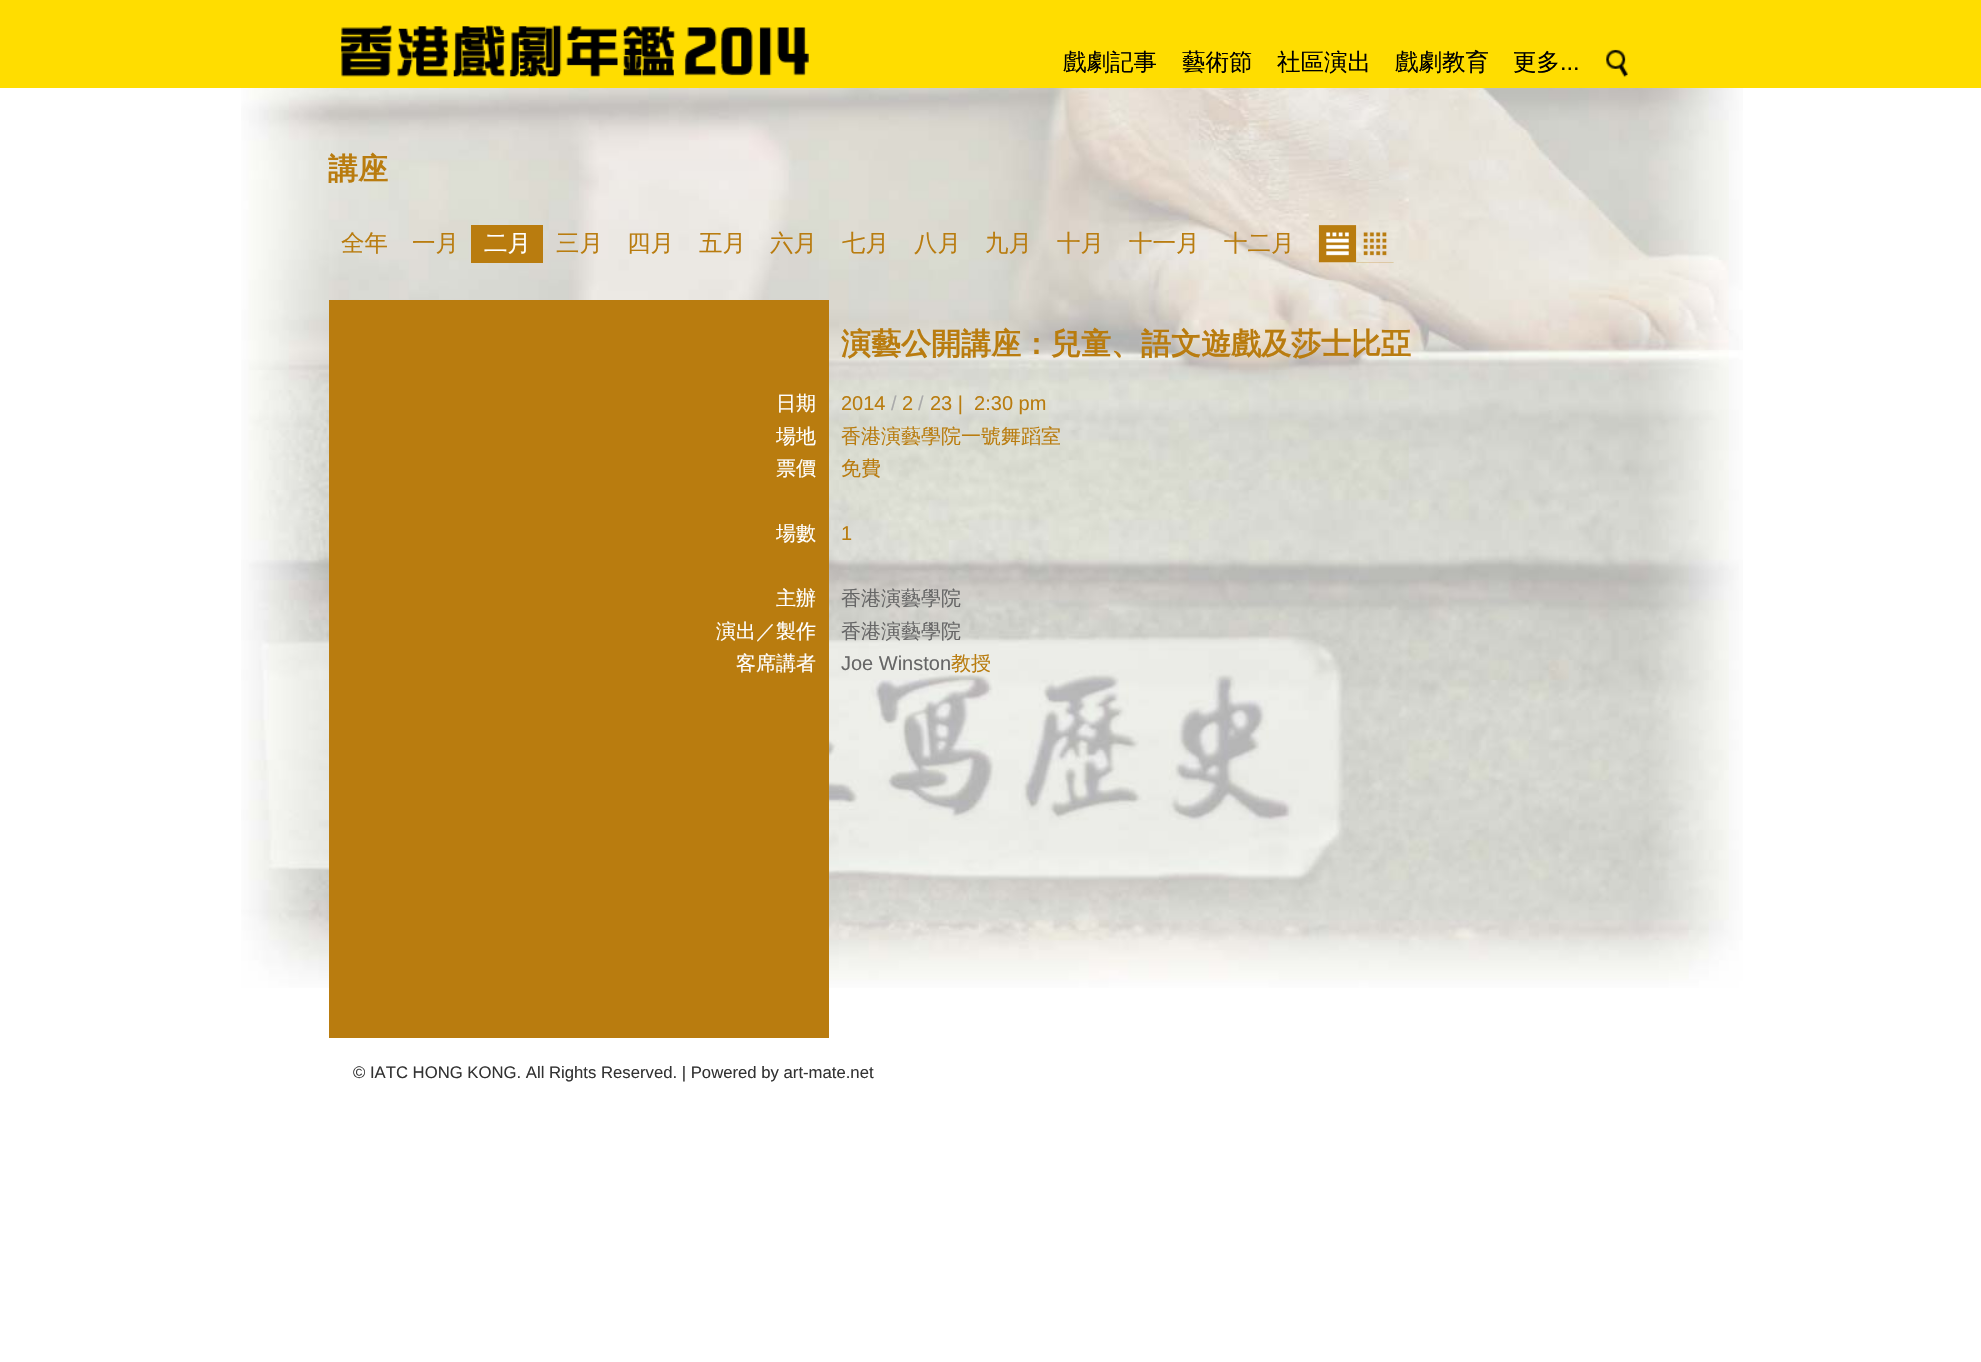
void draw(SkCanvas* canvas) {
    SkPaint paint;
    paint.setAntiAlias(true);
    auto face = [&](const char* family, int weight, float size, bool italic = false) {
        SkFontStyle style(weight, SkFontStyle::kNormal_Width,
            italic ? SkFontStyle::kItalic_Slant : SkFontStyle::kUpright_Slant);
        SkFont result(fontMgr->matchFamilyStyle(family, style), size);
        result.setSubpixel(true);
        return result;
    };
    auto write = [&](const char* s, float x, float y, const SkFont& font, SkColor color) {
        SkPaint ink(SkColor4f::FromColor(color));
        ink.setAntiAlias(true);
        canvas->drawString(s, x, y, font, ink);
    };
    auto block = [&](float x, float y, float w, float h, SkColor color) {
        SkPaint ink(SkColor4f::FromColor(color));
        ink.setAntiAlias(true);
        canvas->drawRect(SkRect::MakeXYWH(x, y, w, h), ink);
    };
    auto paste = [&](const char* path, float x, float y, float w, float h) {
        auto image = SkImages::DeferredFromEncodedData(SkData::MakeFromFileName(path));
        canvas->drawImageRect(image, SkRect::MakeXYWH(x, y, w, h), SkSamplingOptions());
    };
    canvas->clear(SK_ColorWHITE);
    paste("pic1.png", 241, 88, 1502, 900);
    block(0, 0, 1981, 88, SkColorSetRGB(255, 221, 0));
    paste("pic2.png", 341, 25, 468, 52);
    auto kFont1 = face("WenQuanYi Zen Hei", 500, 23.5f);
    write("戲劇記事", 1063, 70, kFont1, SK_ColorBLACK);
    write("藝術節", 1182, 70, kFont1, SK_ColorBLACK);
    write("社區演出", 1277, 70, kFont1, SK_ColorBLACK);
    write("戲劇教育", 1395, 70, kFont1, SK_ColorBLACK);
    write("更多", 1513, 70, kFont1, SK_ColorBLACK);
    auto kFont2 = face("Liberation Sans", 400, 23.5f);
    write("...", 1560, 70, kFont2, SK_ColorBLACK);
    paste("pic3.png", 1606, 49, 22, 29);
    auto kFont3 = face("WenQuanYi Zen Hei", 700, 30);
    write("講座", 328, 179, kFont3, SkColorSetRGB(185, 124, 15));
    write("全年", 341, 251, kFont1, SkColorSetRGB(185, 124, 15));
    write("一月", 412, 251, kFont1, SkColorSetRGB(185, 124, 15));
    block(471, 225, 72, 38, SkColorSetRGB(185, 124, 15));
    write("二月", 484, 251, kFont1, SK_ColorWHITE);
    write("三月", 556, 251, kFont1, SkColorSetRGB(185, 124, 15));
    write("四月", 627, 251, kFont1, SkColorSetRGB(185, 124, 15));
    write("五月", 699, 251, kFont1, SkColorSetRGB(185, 124, 15));
    write("六月", 770, 251, kFont1, SkColorSetRGB(185, 124, 15));
    write("七月", 842, 251, kFont1, SkColorSetRGB(185, 124, 15));
    write("八月", 914, 251, kFont1, SkColorSetRGB(185, 124, 15));
    write("九月", 985, 251, kFont1, SkColorSetRGB(185, 124, 15));
    write("十月", 1057, 251, kFont1, SkColorSetRGB(185, 124, 15));
    write("十一月", 1129, 251, kFont1, SkColorSetRGB(185, 124, 15));
    write("十二月", 1224, 251, kFont1, SkColorSetRGB(185, 124, 15));
    paste("pic4.png", 1318, 225, 39, 38);
    paste("pic5.png", 1356, 232, 38, 31);
    block(329, 300, 500, 738, SkColorSetRGB(185, 124, 15));
    write("演藝公開講座：兒童、語文遊戲及莎士比亞", 841, 354, kFont3, SkColorSetRGB(185, 124, 15));
    auto kFont4 = face("WenQuanYi Zen Hei", 500, 20);
    write("日期", 776, 410, kFont4, SK_ColorWHITE);
    auto kFont5 = face("Liberation Sans", 400, 20);
    write("2014", 841, 410, kFont5, SkColorSetRGB(185, 124, 15));
    write("/", 891, 410, kFont5, SkColorSetRGB(170, 170, 170));
    write("2", 902, 410, kFont5, SkColorSetRGB(185, 124, 15));
    write("/", 918, 410, kFont5, SkColorSetRGB(170, 170, 170));
    write("23 |  2:30 pm", 930, 410, kFont5, SkColorSetRGB(185, 124, 15));
    write("場地", 776, 443, kFont4, SK_ColorWHITE);
    write("香港演藝學院一號舞蹈室", 841, 443, kFont4, SkColorSetRGB(185, 124, 15));
    write("票價", 776, 475, kFont4, SK_ColorWHITE);
    write("免費", 841, 475, kFont4, SkColorSetRGB(185, 124, 15));
    write("場數", 776, 540, kFont4, SK_ColorWHITE);
    write("1", 841, 540, kFont5, SkColorSetRGB(185, 124, 15));
    write("主辦", 776, 605, kFont4, SK_ColorWHITE);
    write("香港演藝學院", 841, 605, kFont4, SkColorSetRGB(102, 102, 102));
    write("演出／製作", 716, 638, kFont4, SK_ColorWHITE);
    write("香港演藝學院", 841, 638, kFont4, SkColorSetRGB(102, 102, 102));
    write("客席講者", 736, 670, kFont4, SK_ColorWHITE);
    write("Joe Winston", 841, 670, kFont5, SkColorSetRGB(102, 102, 102));
    write("教授", 951, 670, kFont4, SkColorSetRGB(185, 124, 15));
    auto kFont6 = face("Liberation Sans", 400, 16.7f);
    write("© IATC HONG KONG. All Rights Reserved. | Powered by art-mate.net", 353, 1078, kFont6, SkColorSetRGB(51, 51, 51));
}
